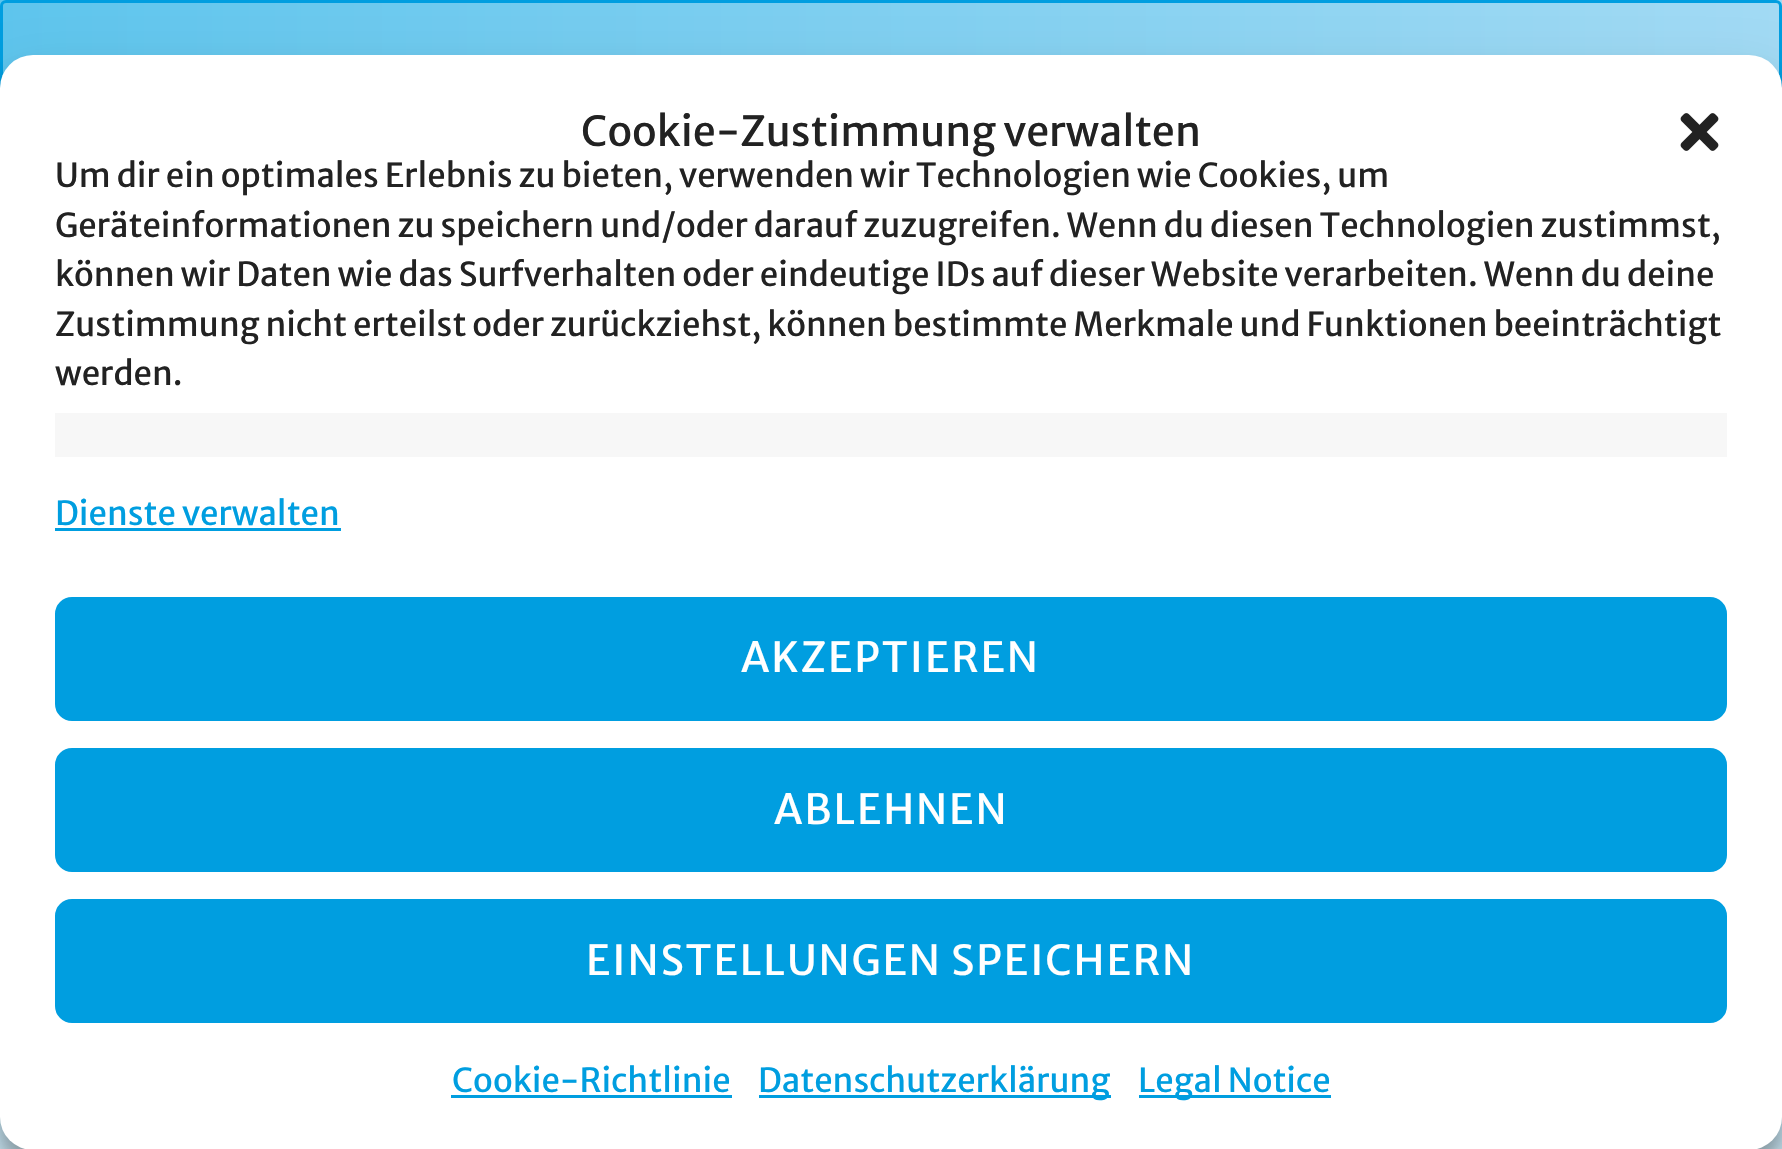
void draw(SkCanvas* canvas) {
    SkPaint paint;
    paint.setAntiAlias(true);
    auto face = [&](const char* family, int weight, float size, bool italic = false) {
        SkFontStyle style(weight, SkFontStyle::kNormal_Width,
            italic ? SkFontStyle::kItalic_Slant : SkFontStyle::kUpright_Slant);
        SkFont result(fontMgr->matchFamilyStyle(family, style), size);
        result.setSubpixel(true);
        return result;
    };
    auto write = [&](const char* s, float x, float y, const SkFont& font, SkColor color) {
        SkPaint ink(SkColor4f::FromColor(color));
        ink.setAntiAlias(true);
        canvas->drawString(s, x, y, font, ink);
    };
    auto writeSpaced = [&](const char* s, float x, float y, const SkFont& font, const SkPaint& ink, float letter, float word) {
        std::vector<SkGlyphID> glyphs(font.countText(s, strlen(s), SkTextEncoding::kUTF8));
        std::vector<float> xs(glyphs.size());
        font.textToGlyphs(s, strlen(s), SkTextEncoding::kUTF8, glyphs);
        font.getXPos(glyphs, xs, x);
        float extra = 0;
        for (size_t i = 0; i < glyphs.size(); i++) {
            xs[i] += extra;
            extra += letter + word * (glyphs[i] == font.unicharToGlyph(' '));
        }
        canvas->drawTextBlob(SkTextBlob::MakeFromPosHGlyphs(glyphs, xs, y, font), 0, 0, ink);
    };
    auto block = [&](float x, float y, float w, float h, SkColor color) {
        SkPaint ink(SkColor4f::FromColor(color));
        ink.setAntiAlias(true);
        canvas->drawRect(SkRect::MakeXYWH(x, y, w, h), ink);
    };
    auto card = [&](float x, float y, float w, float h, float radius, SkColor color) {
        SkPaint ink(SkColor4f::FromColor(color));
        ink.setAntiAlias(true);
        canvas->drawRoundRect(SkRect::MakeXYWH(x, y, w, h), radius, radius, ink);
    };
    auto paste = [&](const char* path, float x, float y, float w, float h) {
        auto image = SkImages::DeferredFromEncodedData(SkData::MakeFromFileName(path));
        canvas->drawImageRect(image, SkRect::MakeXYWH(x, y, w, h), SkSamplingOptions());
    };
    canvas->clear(SK_ColorWHITE);
    {
        const SkColor colors[] = {SkColorSetRGB(162, 218, 244), SkColorSetRGB(245, 251, 254), SkColorSetRGB(189, 228, 247), SkColorSetRGB(94, 197, 237)};
        const float stops[] = {0.2f, 0.3f, 0.6f, 1};
        const SkPoint ends[] = {{891, 0}, {891, 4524}};
        paint.setShader(SkGradientShader::MakeLinear(ends, colors, stops, 4, SkTileMode::kClamp));
        paint.setAlpha(255);
    }
    canvas->drawRect(SkRect::MakeXYWH(0, 1117, 1782, 32), paint);
    paste("pic1.png", 17, 1146, 1763, 3);
    {
        const SkColor colors[] = {SkColorSetRGB(94, 197, 237), SkColorSetRGB(162, 218, 244), SkColorSetRGB(0, 158, 224)};
        const float stops[] = {0, 0.5f, 1};
        const SkPoint ends[] = {{0, 521}, {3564, 521}};
        paint.setShader(SkGradientShader::MakeLinear(ends, colors, stops, 3, SkTileMode::kClamp));
        paint.setAlpha(255);
    }
    canvas->drawRect(SkRect::MakeXYWH(0, 0, 1782, 75), paint);
    paint.setStyle(SkPaint::kStroke_Style);
    paint.setStrokeWidth(3);
    paint.setShader(nullptr);
    paint.setColor(SkColorSetRGB(0, 158, 224));
    canvas->drawRoundRect(SkRect::MakeXYWH(1.5f, 1.5f, 1779, 121), 4.5f, 4.5f, paint);
    paint.setStyle(SkPaint::kFill_Style);
    paint.setColor(SkColorSetARGB(59, 0, 0, 0));
    paint.setMaskFilter(SkMaskFilter::MakeBlur(kNormal_SkBlurStyle, 8));
    canvas->drawRoundRect(SkRect::MakeXYWH(0, 72, 1782, 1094), 33, 33, paint);
    paint.setMaskFilter(nullptr);
    paint.setColor(SkColorSetARGB(48, 0, 0, 0));
    paint.setMaskFilter(SkMaskFilter::MakeBlur(kNormal_SkBlurStyle, 27.5f));
    canvas->drawRoundRect(SkRect::MakeXYWH(0, 83, 1782, 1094), 33, 33, paint);
    paint.setMaskFilter(nullptr);
    card(0, 55, 1782, 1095, 33, SK_ColorWHITE);
    auto kFont1 = face("Merriweather Sans", 400, 41.25f);
    write("Cookie-Zustimmung verwalten", 581, 146, kFont1, SkColorSetRGB(34, 34, 34));
    paste("pic2.png", 1680, 113, 39, 38);
    auto kFont2 = face("Merriweather Sans", 400, 33);
    write("Um dir ein optimales Erlebnis zu bieten, verwenden wir Technologien wie Cookies, um", 55, 187, kFont2, SkColorSetRGB(34, 34, 34));
    write("Geräteinformationen zu speichern und/oder darauf zuzugreifen. Wenn du diesen Technologien zustimmst,", 55, 237, kFont2, SkColorSetRGB(34, 34, 34));
    write("können wir Daten wie das Surfverhalten oder eindeutige IDs auf dieser Website verarbeiten. Wenn du deine", 55, 286, kFont2, SkColorSetRGB(34, 34, 34));
    write("Zustimmung nicht erteilst oder zurückziehst, können bestimmte Merkmale und Funktionen beeinträchtigt", 55, 336, kFont2, SkColorSetRGB(34, 34, 34));
    write("werden.", 55, 385, kFont2, SkColorSetRGB(34, 34, 34));
    block(55, 413, 1672, 44, SkColorSetRGB(247, 247, 247));
    write("Dienste verwalten", 55, 525, kFont2, SkColorSetRGB(0, 158, 224));
    block(55, 528, 286, 3, SkColorSetRGB(0, 158, 224));
    paint.setColor(SkColorSetRGB(0, 158, 224));
    canvas->drawRoundRect(SkRect::MakeXYWH(56.5f, 598.5f, 1669, 121), 15.5f, 15.5f, paint);
    paint.setStyle(SkPaint::kStroke_Style);
    canvas->drawRoundRect(SkRect::MakeXYWH(56.5f, 598.5f, 1669, 121), 15.5f, 15.5f, paint);
    paint.setStyle(SkPaint::kFill_Style);
    paint.setColor(SK_ColorWHITE);
    writeSpaced("AKZEPTIEREN", 741, 672, kFont1, paint, 1.9f, 0);
    paint.setColor(SkColorSetRGB(0, 158, 224));
    canvas->drawRoundRect(SkRect::MakeXYWH(56.5f, 749.5f, 1669, 121), 15.5f, 15.5f, paint);
    paint.setStyle(SkPaint::kStroke_Style);
    canvas->drawRoundRect(SkRect::MakeXYWH(56.5f, 749.5f, 1669, 121), 15.5f, 15.5f, paint);
    paint.setStyle(SkPaint::kFill_Style);
    paint.setColor(SK_ColorWHITE);
    writeSpaced("ABLEHNEN", 774, 824, kFont1, paint, 1.9f, 0);
    paint.setColor(SkColorSetRGB(0, 158, 224));
    canvas->drawRoundRect(SkRect::MakeXYWH(56.5f, 900.5f, 1669, 121), 15.5f, 15.5f, paint);
    paint.setStyle(SkPaint::kStroke_Style);
    canvas->drawRoundRect(SkRect::MakeXYWH(56.5f, 900.5f, 1669, 121), 15.5f, 15.5f, paint);
    paint.setStyle(SkPaint::kFill_Style);
    paint.setColor(SK_ColorWHITE);
    writeSpaced("EINSTELLUNGEN SPEICHERN", 586, 975, kFont1, paint, 1.9f, 0);
    write("Cookie-Richtlinie", 452, 1092, kFont2, SkColorSetRGB(0, 158, 224));
    block(451, 1095, 281, 3, SkColorSetRGB(0, 158, 224));
    block(759, 1095, 352, 3, SkColorSetRGB(0, 158, 224));
    write("Datenschutzerklärung", 758, 1092, kFont2, SkColorSetRGB(0, 158, 224));
    block(1139, 1095, 192, 3, SkColorSetRGB(0, 158, 224));
    write("Legal Notice", 1138, 1092, kFont2, SkColorSetRGB(0, 158, 224));
}
